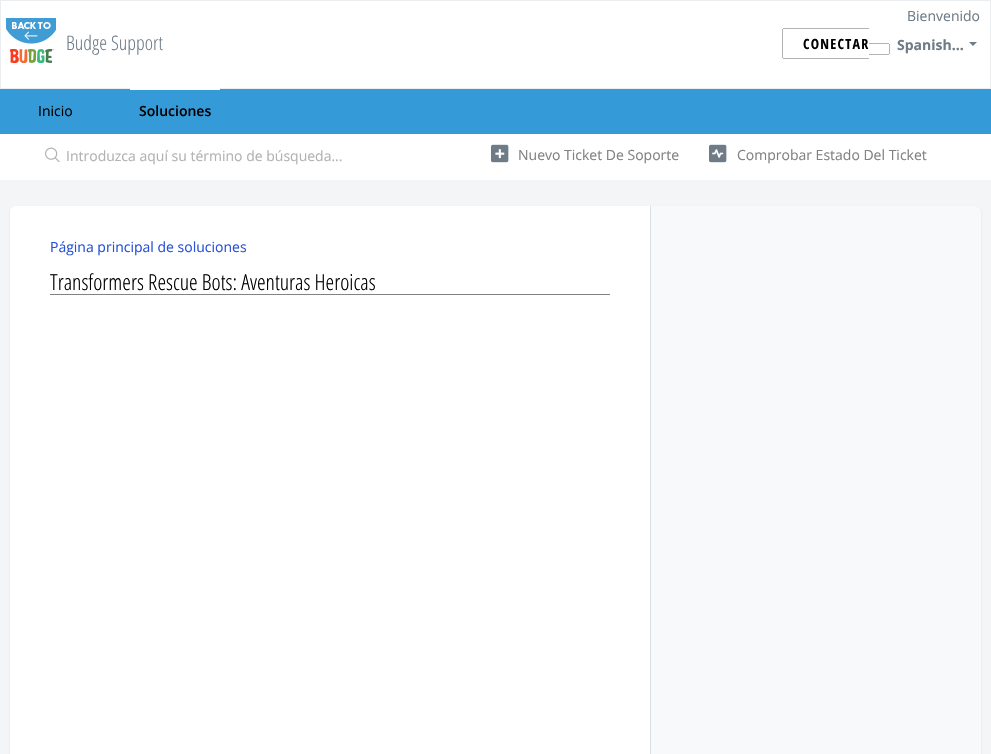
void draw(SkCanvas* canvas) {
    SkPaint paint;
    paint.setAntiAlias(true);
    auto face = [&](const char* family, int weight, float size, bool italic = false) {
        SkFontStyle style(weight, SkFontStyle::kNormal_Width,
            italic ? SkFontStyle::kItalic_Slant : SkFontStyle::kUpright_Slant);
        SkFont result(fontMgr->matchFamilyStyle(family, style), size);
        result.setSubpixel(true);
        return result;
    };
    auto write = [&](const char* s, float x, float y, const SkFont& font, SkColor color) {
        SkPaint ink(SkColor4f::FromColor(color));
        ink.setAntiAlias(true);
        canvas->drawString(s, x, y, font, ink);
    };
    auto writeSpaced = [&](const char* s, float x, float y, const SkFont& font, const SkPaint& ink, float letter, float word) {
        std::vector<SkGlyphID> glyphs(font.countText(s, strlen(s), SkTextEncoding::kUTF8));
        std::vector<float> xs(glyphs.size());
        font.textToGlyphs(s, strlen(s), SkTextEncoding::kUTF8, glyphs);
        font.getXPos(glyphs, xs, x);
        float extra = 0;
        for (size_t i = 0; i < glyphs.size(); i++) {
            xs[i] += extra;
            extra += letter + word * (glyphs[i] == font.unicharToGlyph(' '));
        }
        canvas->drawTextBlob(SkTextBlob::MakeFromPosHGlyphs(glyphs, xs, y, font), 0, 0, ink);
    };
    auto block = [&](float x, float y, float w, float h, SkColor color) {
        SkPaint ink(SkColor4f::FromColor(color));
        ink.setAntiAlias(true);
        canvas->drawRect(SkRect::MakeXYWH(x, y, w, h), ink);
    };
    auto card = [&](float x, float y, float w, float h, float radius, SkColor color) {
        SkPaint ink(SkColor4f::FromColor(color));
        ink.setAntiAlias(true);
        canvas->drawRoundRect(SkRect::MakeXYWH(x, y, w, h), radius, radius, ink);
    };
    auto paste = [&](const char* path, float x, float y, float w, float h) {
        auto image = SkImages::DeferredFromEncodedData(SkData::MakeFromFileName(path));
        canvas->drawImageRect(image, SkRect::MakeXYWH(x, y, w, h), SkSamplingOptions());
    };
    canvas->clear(SkColorSetRGB(243, 245, 247));
    paint.setColor(SK_ColorWHITE);
    canvas->drawRect(SkRect::MakeXYWH(0.5f, 0.5f, 990, 88), paint);
    paint.setStyle(SkPaint::kStroke_Style);
    paint.setStrokeWidth(1);
    paint.setColor(SkColorSetRGB(235, 238, 240));
    canvas->drawRect(SkRect::MakeXYWH(0.5f, 0.5f, 990, 88), paint);
    paste("pic1.png", 6, 18, 50, 45);
    auto kFont1 = face("Open Sans Condensed", 300, 20);
    write("Budge Support", 66, 50, kFont1, SkColorSetRGB(111, 124, 135));
    auto kFont2 = face("Open Sans", 400, 14);
    write("Bienvenido", 907, 21, kFont2, SkColorSetRGB(111, 124, 135));
    auto kFont3 = face("Open Sans Condensed", 700, 14);
    paint.setStyle(SkPaint::kFill_Style);
    paint.setColor(SK_ColorBLACK);
    writeSpaced("CONECTAR", 803, 49, kFont3, paint, 1.25f, 0);
    block(783, 28, 86, 1, SkColorSetRGB(179, 179, 179));
    block(783, 58, 86, 1, SkColorSetRGB(179, 179, 179));
    block(782, 29, 1, 29, SkColorSetRGB(179, 179, 179));
    block(869, 43, 20, 1, SkColorSetRGB(179, 179, 179));
    block(889, 44, 1, 10, SkColorSetRGB(179, 179, 179));
    block(869, 54, 20, 1, SkColorSetRGB(179, 179, 179));
    auto kFont4 = face("Open Sans", 700, 14);
    write("Spanish...", 897, 50, kFont4, SkColorSetRGB(111, 124, 135));
    paint.setColor(SkColorSetRGB(111, 124, 135));
    canvas->drawPath(SkPathBuilder().moveTo(969, 42).lineTo(977, 42).lineTo(973, 46).close().detach(), paint);
    block(0, 89, 991, 45, SkColorSetRGB(52, 155, 216));
    write("Inicio", 38, 116, kFont2, SK_ColorBLACK);
    block(130, 88, 90, 2, SK_ColorWHITE);
    auto kFont5 = face("Open Sans", 600, 14);
    write("Soluciones", 139, 116, kFont5, SK_ColorBLACK);
    block(0, 134, 991, 46, SK_ColorWHITE);
    paste("pic2.png", 45, 147, 15, 15);
    write("Introduzca aquí su término de búsqueda...", 66, 161, kFont2, SkColorSetRGB(178, 178, 178));
    paste("pic3.png", 491, 144, 18, 19);
    write("Nuevo Ticket De Soporte", 518, 160, kFont2, SkColorSetRGB(130, 130, 130));
    paste("pic4.png", 709, 144, 18, 19);
    write("Comprobar Estado Del Ticket", 737, 160, kFont2, SkColorSetRGB(130, 130, 130));
    paint.setColor(SkColorSetARGB(38, 63, 63, 68));
    paint.setMaskFilter(SkMaskFilter::MakeBlur(kNormal_SkBlurStyle, 1));
    canvas->drawRoundRect(SkRect::MakeXYWH(10, 207, 971, 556), 6, 6, paint);
    paint.setMaskFilter(nullptr);
    card(10, 206, 971, 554, 6, SkColorSetRGB(248, 249, 250));
    paint.setColor(SK_ColorWHITE);
    canvas->drawPath(SkPathBuilder().moveTo(16, 206).lineTo(651, 206).lineTo(651, 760).lineTo(16, 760).cubicTo(12.5f, 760, 10, 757.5f, 10, 754).lineTo(10, 212).cubicTo(10, 208.5f, 12.5f, 206, 16, 206).close().detach(), paint);
    block(650, 206, 1, 548, SkColorSetRGB(218, 223, 227));
    write("Página principal de soluciones", 50, 252, kFont2, SkColorSetRGB(39, 83, 215));
    block(50, 294, 560, 1, SkColorSetRGB(130, 130, 130));
    auto kFont6 = face("Open Sans Condensed", 300, 22);
    write("Transformers Rescue Bots: Aventuras Heroicas", 50, 290, kFont6, SK_ColorBLACK);
}
